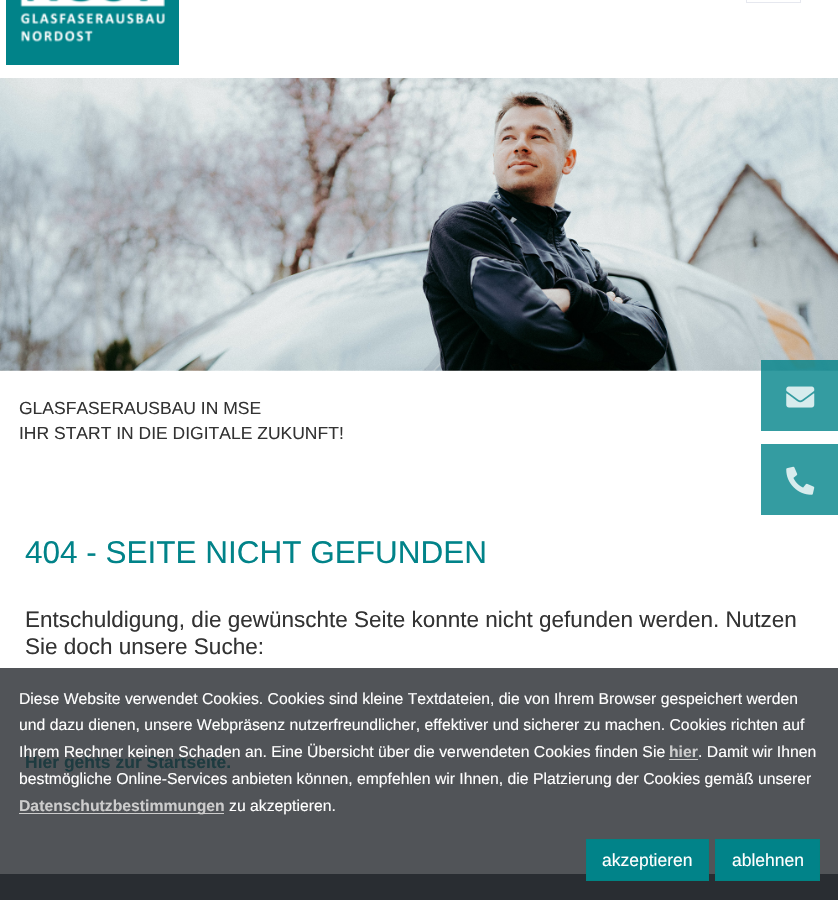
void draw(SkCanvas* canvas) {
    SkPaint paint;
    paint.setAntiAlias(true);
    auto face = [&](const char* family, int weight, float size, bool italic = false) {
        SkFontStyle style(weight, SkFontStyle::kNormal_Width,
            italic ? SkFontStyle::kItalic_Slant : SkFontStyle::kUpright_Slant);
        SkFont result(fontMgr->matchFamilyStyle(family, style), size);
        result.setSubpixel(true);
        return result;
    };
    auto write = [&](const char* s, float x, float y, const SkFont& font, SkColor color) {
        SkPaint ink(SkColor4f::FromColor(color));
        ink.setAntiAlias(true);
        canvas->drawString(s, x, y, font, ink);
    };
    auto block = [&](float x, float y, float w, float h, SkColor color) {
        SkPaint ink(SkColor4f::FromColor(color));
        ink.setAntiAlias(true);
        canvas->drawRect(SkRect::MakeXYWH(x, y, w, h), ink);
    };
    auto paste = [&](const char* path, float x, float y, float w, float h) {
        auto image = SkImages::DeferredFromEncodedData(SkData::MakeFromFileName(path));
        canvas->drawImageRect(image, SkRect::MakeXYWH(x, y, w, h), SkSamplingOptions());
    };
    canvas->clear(SK_ColorWHITE);
    block(0, 668, 838, 206, SkColorSetRGB(81, 84, 88));
    block(6, 0, 173, 65, SkColorSetRGB(1, 131, 137));
    paste("pic1.png", 20, 0, 145, 42);
    paint.setStyle(SkPaint::kStroke_Style);
    paint.setStrokeWidth(1);
    paint.setColor(SkColorSetRGB(230, 232, 239));
    canvas->drawRect(SkRect::MakeXYWH(746.5f, -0.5f, 54, 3), paint);
    paste("pic2.png", 0, 78, 838, 293);
    auto kFont1 = face("Liberation Sans", 400, 17.5f);
    write("GLASFASERAUSBAU IN MSE", 19, 414, kFont1, SkColorSetRGB(51, 51, 51));
    write("IHR START IN DIE DIGITALE ZUKUNFT!", 19, 439, kFont1, SkColorSetRGB(51, 51, 51));
    auto kFont2 = face("Liberation Sans", 400, 31.5f);
    write("404 - SEITE NICHT GEFUNDEN", 25, 563, kFont2, SkColorSetRGB(1, 131, 137));
    auto kFont3 = face("Liberation Sans", 400, 22.5f);
    write("Entschuldigung, die gewünschte Seite konnte nicht gefunden werden. Nutzen", 25, 627, kFont3, SkColorSetRGB(51, 51, 51));
    write("Sie doch unsere Suche:", 25, 654, kFont3, SkColorSetRGB(51, 51, 51));
    auto kFont4 = face("Liberation Sans", 700, 17.5f);
    write("Hier gehts zur Startseite.", 25, 768, kFont4, SkColorSetRGB(30, 59, 64));
    block(0, 874, 838, 26, SkColorSetRGB(41, 45, 50));
    block(761, 360, 77, 71, SkColorSetARGB(204, 1, 131, 137));
    paste("pic3.png", 786, 386, 29, 22);
    block(761, 444, 77, 71, SkColorSetRGB(52, 156, 161));
    paste("pic4.png", 786, 466, 29, 29);
    auto kFont5 = face("Liberation Sans", 400, 15.75f);
    write("Diese Website verwendet Cookies. Cookies sind kleine Textdateien, die von Ihrem Browser gespeichert werden", 19, 704, kFont5, SK_ColorWHITE);
    write("und dazu dienen, unsere Webpräsenz nutzerfreundlicher, effektiver und sicherer zu machen. Cookies richten auf", 19, 730, kFont5, SK_ColorWHITE);
    write("Ihrem Rechner keinen Schaden an. Eine Übersicht über die verwendeten Cookies finden Sie", 19, 757, kFont5, SK_ColorWHITE);
    auto kFont6 = face("Liberation Sans", 700, 15.75f);
    write("hier", 669, 757, kFont6, SkColorSetRGB(204, 204, 204));
    block(669, 759, 29, 1, SkColorSetRGB(204, 204, 204));
    write(". Damit wir Ihnen", 698, 757, kFont5, SK_ColorWHITE);
    write("bestmögliche Online-Services anbieten können, empfehlen wir Ihnen, die Platzierung der Cookies gemäß unserer", 19, 784, kFont5, SK_ColorWHITE);
    block(19, 813, 205, 1, SkColorSetRGB(204, 204, 204));
    write("Datenschutzbestimmungen", 19, 811, kFont6, SkColorSetRGB(204, 204, 204));
    write("zu akzeptieren.", 229, 811, kFont5, SK_ColorWHITE);
    paint.setStyle(SkPaint::kFill_Style);
    paint.setColor(SkColorSetRGB(1, 131, 137));
    canvas->drawRect(SkRect::MakeXYWH(586.5f, 839.5f, 122, 41), paint);
    paint.setStyle(SkPaint::kStroke_Style);
    paint.setColor(SkColorSetRGB(1, 131, 131));
    canvas->drawRect(SkRect::MakeXYWH(586.5f, 839.5f, 122, 41), paint);
    write("akzeptieren", 602, 866, kFont1, SK_ColorWHITE);
    paint.setStyle(SkPaint::kFill_Style);
    paint.setColor(SkColorSetRGB(1, 131, 137));
    canvas->drawRect(SkRect::MakeXYWH(715.5f, 839.5f, 104, 41), paint);
    paint.setStyle(SkPaint::kStroke_Style);
    paint.setColor(SkColorSetRGB(1, 131, 131));
    canvas->drawRect(SkRect::MakeXYWH(715.5f, 839.5f, 104, 41), paint);
    write("ablehnen", 732, 866, kFont1, SK_ColorWHITE);
}
